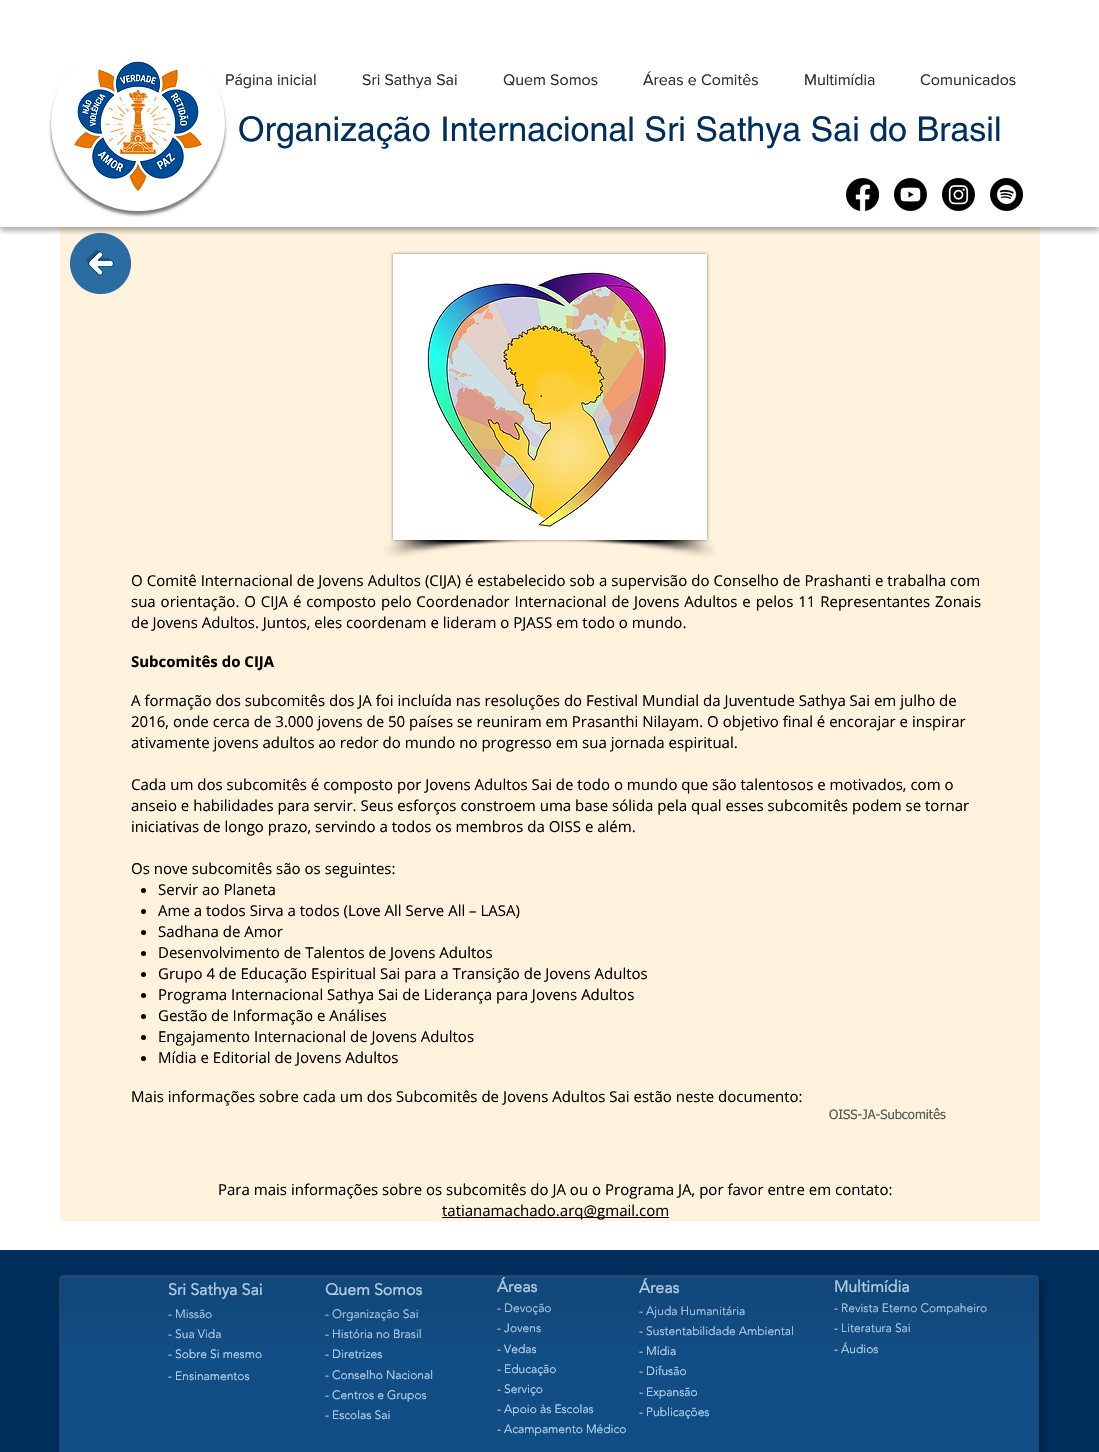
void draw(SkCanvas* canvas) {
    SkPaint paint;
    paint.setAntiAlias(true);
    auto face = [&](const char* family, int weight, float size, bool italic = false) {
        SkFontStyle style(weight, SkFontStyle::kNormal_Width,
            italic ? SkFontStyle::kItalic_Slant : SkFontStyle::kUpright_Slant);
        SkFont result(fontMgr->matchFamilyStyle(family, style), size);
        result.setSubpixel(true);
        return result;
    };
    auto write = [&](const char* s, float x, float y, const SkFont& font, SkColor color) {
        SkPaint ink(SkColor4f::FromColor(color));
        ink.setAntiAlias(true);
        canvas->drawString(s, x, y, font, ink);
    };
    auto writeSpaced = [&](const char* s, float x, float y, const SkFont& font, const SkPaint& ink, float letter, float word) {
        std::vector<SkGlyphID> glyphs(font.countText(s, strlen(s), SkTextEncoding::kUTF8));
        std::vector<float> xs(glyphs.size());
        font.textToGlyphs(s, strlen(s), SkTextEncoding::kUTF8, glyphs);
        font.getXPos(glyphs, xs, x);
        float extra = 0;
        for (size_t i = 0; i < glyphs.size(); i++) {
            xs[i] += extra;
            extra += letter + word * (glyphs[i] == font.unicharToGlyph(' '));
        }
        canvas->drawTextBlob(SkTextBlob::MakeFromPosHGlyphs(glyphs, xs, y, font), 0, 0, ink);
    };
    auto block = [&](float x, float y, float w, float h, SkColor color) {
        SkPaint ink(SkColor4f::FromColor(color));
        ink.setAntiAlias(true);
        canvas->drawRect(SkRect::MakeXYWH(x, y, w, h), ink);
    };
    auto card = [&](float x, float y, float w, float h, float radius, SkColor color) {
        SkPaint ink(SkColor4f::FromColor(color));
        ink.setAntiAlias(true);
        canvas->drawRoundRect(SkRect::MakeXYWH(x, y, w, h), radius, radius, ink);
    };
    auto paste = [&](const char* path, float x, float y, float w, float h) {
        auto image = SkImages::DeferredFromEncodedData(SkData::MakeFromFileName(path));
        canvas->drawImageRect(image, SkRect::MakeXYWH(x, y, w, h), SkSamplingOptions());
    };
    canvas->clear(SK_ColorWHITE);
    block(60, 227, 980, 994, SkColorSetRGB(255, 243, 222));
    paste("pic6.png", 70, 233, 61, 61);
    canvas->save();
    canvas->clipRect(SkRect::MakeXYWH(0, 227, 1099, 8));
    paint.setColor(SkColorSetARGB(77, 0, 0, 0));
    paint.setMaskFilter(SkMaskFilter::MakeBlur(kNormal_SkBlurStyle, 2.5f));
    canvas->drawRect(SkRect::MakeXYWH(0, 4, 1099, 227), paint);
    paint.setMaskFilter(nullptr);
    canvas->restore();
    paint.setColor(SkColorSetARGB(128, 0, 0, 0));
    paint.setMaskFilter(SkMaskFilter::MakeBlur(kNormal_SkBlurStyle, 1.5f));
    canvas->drawRoundRect(SkRect::MakeXYWH(51, 41, 174, 174), 87, 87, paint);
    paint.setMaskFilter(nullptr);
    paint.setColor(SK_ColorWHITE);
    canvas->drawCircle(138, 124, 83, paint);
    paint.setStyle(SkPaint::kStroke_Style);
    paint.setStrokeWidth(8);
    canvas->drawCircle(138, 124, 83, paint);
    paste("pic1.png", 74, 59, 128, 132);
    auto kFont1 = face("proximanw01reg", 400, 16);
    write("Página inicial", 225, 85, kFont1, SkColorSetRGB(47, 46, 46));
    write("Sri Sathya Sai", 362, 85, kFont1, SkColorSetRGB(47, 46, 46));
    write("Quem Somos", 503, 85, kFont1, SkColorSetRGB(47, 46, 46));
    write("Áreas e Comitês", 643, 85, kFont1, SkColorSetRGB(47, 46, 46));
    write("Multimídia", 804, 85, kFont1, SkColorSetRGB(47, 46, 46));
    write("Comunicados", 920, 85, kFont1, SkColorSetRGB(47, 46, 46));
    auto kFont2 = face("helvetica", 400, 34);
    write("Organização Internacional Sri Sathya Sai do Brasil", 238, 141, kFont2, SkColorSetRGB(0, 46, 93));
    paste("pic2.png", 846, 178, 33, 33);
    paste("pic3.png", 894, 178, 33, 33);
    paste("pic4.png", 942, 178, 33, 33);
    paste("pic5.png", 990, 178, 33, 33);
    paint.setStyle(SkPaint::kFill_Style);
    paint.setColor(SkColorSetARGB(128, 0, 0, 0));
    paint.setMaskFilter(SkMaskFilter::MakeBlur(kNormal_SkBlurStyle, 1.5f));
    canvas->drawRect(SkRect::MakeXYWH(393, 254, 314, 286), paint);
    paint.setMaskFilter(nullptr);
    paste("pic7.png", 393, 254, 314, 286);
    paste("pic8.png", 384, 540, 154, 18);
    paste("pic9.png", 562, 540, 154, 18);
    auto kFont3 = face("Open Sans", 400, 15);
    paint.setColor(SK_ColorBLACK);
    writeSpaced("O Comitê Internacional de Jovens Adultos (CIJA) é estabelecido sob a supervisão do Conselho de Prashanti e trabalha com", 131, 586, kFont3, paint, 0, 0.1f);
    writeSpaced("sua orientação. O CIJA é composto pelo Coordenador Internacional de Jovens Adultos e pelos 11 Representantes Zonais", 131, 607, kFont3, paint, 0, 1);
    write("de Jovens Adultos. Juntos, eles coordenam e lideram o PJASS em todo o mundo.", 131, 628, kFont3, SK_ColorBLACK);
    auto kFont4 = face("Open Sans", 700, 15);
    write("Subcomitês do CIJA", 131, 667, kFont4, SK_ColorBLACK);
    write("A formação dos subcomitês dos JA foi incluída nas resoluções do Festival Mundial da Juventude Sathya Sai em julho de", 131, 706, kFont3, SK_ColorBLACK);
    write("2016, onde cerca de 3.000 jovens de 50 países se reuniram em Prasanthi Nilayam. O objetivo final é encorajar e inspirar", 131, 727, kFont3, SK_ColorBLACK);
    write("ativamente jovens adultos ao redor do mundo no progresso em sua jornada espiritual.", 131, 748, kFont3, SK_ColorBLACK);
    write("Cada um dos subcomitês é composto por Jovens Adultos Sai de todo o mundo que são talentosos e motivados, com o", 131, 790, kFont3, SK_ColorBLACK);
    write("anseio e habilidades para servir. Seus esforços constroem uma base sólida pela qual esses subcomitês podem se tornar", 131, 811, kFont3, SK_ColorBLACK);
    write("iniciativas de longo prazo, servindo a todos os membros da OISS e além.", 131, 832, kFont3, SK_ColorBLACK);
    write("Os nove subcomitês são os seguintes:", 131, 874, kFont3, SK_ColorBLACK);
    canvas->drawCircle(143.5f, 890.5f, 2.5f, paint);
    write("Servir ao Planeta", 158, 895, kFont3, SK_ColorBLACK);
    canvas->drawCircle(143.5f, 911.5f, 2.5f, paint);
    write("Ame a todos Sirva a todos (Love All Serve All – LASA)", 158, 916, kFont3, SK_ColorBLACK);
    canvas->drawCircle(143.5f, 932.5f, 2.5f, paint);
    write("Sadhana de Amor", 158, 937, kFont3, SK_ColorBLACK);
    canvas->drawCircle(143.5f, 953.5f, 2.5f, paint);
    write("Desenvolvimento de Talentos de Jovens Adultos", 158, 958, kFont3, SK_ColorBLACK);
    canvas->drawCircle(143.5f, 974.5f, 2.5f, paint);
    write("Grupo 4 de Educação Espiritual Sai para a Transição de Jovens Adultos", 158, 979, kFont3, SK_ColorBLACK);
    canvas->drawCircle(143.5f, 995.5f, 2.5f, paint);
    write("Programa Internacional Sathya Sai de Liderança para Jovens Adultos", 158, 1000, kFont3, SK_ColorBLACK);
    canvas->drawCircle(143.5f, 1016.5f, 2.5f, paint);
    write("Gestão de Informação e Análises", 158, 1021, kFont3, SK_ColorBLACK);
    canvas->drawCircle(143.5f, 1037.5f, 2.5f, paint);
    write("Engajamento Internacional de Jovens Adultos", 158, 1042, kFont3, SK_ColorBLACK);
    canvas->drawCircle(143.5f, 1058.5f, 2.5f, paint);
    write("Mídia e Editorial de Jovens Adultos", 158, 1063, kFont3, SK_ColorBLACK);
    write("Mais informações sobre cada um dos Subcomitês de Jovens Adultos Sai estão neste documento:", 131, 1102, kFont3, SK_ColorBLACK);
    write("Para mais informações sobre os subcomitês do JA ou o Programa JA, por favor entre em contato:", 218, 1195, kFont3, SK_ColorBLACK);
    block(442, 1217, 227, 1, SK_ColorBLACK);
    write("tatianamachado.arq@gmail.com", 442, 1216, kFont3, SK_ColorBLACK);
    auto kFont5 = face("tahoma", 400, 13);
    write("OISS-JA-Subcomitês", 829, 1119, kFont5, SkColorSetRGB(82, 90, 81));
    block(0, 1250, 1099, 202, SkColorSetRGB(0, 46, 93));
    canvas->save();
    canvas->clipPath(SkPathBuilder(SkPathFillType::kEvenOdd).moveTo(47, 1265).lineTo(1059, 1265).lineTo(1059, 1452).lineTo(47, 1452).close().moveTo(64, 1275).lineTo(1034, 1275).cubicTo(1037, 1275, 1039, 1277, 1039, 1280).lineTo(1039, 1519).cubicTo(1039, 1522, 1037, 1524, 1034, 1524).lineTo(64, 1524).cubicTo(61, 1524, 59, 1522, 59, 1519).lineTo(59, 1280).cubicTo(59, 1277, 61, 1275, 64, 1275).close().detach(), true);
    paint.setColor(SkColorSetARGB(77, 0, 0, 0));
    paint.setMaskFilter(SkMaskFilter::MakeBlur(kNormal_SkBlurStyle, 5));
    canvas->drawRoundRect(SkRect::MakeXYWH(63, 1281, 980, 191), 5, 5, paint);
    paint.setMaskFilter(nullptr);
    canvas->restore();
    auto kFont6 = face("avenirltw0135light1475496", 700, 16);
    write("Sri Sathya Sai", 168, 1295, kFont6, SkColorSetRGB(250, 250, 250));
    auto kFont7 = face("avenirltw0135light1475496", 300, 12);
    write("- Missão", 168, 1318, kFont7, SkColorSetRGB(250, 250, 250));
    write("- Sua Vida", 168, 1338, kFont7, SkColorSetRGB(250, 250, 250));
    write("- Sobre Si mesmo", 168, 1358, kFont7, SkColorSetRGB(250, 250, 250));
    write("- Ensinamentos", 168, 1380, kFont7, SkColorSetRGB(250, 250, 250));
    write("Quem Somos", 325, 1295, kFont6, SkColorSetRGB(250, 250, 250));
    write("- Organização Sai", 325, 1318, kFont7, SkColorSetRGB(250, 250, 250));
    write("- História no Brasil", 325, 1338, kFont7, SkColorSetRGB(250, 250, 250));
    write("- Diretrizes", 325, 1358, kFont7, SkColorSetRGB(250, 250, 250));
    write("- Conselho Nacional", 325, 1379, kFont7, SkColorSetRGB(250, 250, 250));
    write("- Centros e Grupos", 325, 1399, kFont7, SkColorSetRGB(250, 250, 250));
    write("- Escolas Sai", 325, 1419, kFont7, SkColorSetRGB(250, 250, 250));
    write("Áreas", 497, 1292, kFont6, SkColorSetRGB(250, 250, 250));
    write("- Devoção", 497, 1312, kFont7, SkColorSetRGB(250, 250, 250));
    write("- Jovens", 497, 1332, kFont7, SkColorSetRGB(250, 250, 250));
    write("- Vedas", 497, 1353, kFont7, SkColorSetRGB(250, 250, 250));
    write("- Educação", 497, 1373, kFont7, SkColorSetRGB(250, 250, 250));
    write("- Serviço", 497, 1393, kFont7, SkColorSetRGB(250, 250, 250));
    write("- Apoio às Escolas", 497, 1413, kFont7, SkColorSetRGB(250, 250, 250));
    write("- Acampamento Médico", 497, 1433, kFont7, SkColorSetRGB(250, 250, 250));
    write("Áreas", 639, 1293, kFont6, SkColorSetRGB(250, 250, 250));
    write("- Ajuda Humanitária", 639, 1315, kFont7, SkColorSetRGB(250, 250, 250));
    write("- Sustentabilidade Ambiental", 639, 1335, kFont7, SkColorSetRGB(250, 250, 250));
    write("- Mídia", 639, 1355, kFont7, SkColorSetRGB(250, 250, 250));
    write("- Difusão", 639, 1375, kFont7, SkColorSetRGB(250, 250, 250));
    write("- Expansão", 639, 1396, kFont7, SkColorSetRGB(250, 250, 250));
    write("- Publicações", 639, 1416, kFont7, SkColorSetRGB(250, 250, 250));
    write("Multimídia", 834, 1292, kFont6, SkColorSetRGB(250, 250, 250));
    write("- Revista Eterno Compaheiro", 834, 1312, kFont7, SkColorSetRGB(250, 250, 250));
    write("- Literatura Sai", 834, 1332, kFont7, SkColorSetRGB(250, 250, 250));
    write("- Áudios", 834, 1353, kFont7, SkColorSetRGB(250, 250, 250));
    card(59, 1275, 980, 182, 5, SkColorSetARGB(74, 61, 155, 233));
    paste("pic10.png", 59, 1278, 980, 69);
    paint.setStyle(SkPaint::kStroke_Style);
    paint.setStrokeWidth(1);
    paint.setColor(SkColorSetRGB(50, 65, 88));
    canvas->drawRoundRect(SkRect::MakeXYWH(59.5f, 1275.5f, 979, 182), 4.5f, 4.5f, paint);
}
